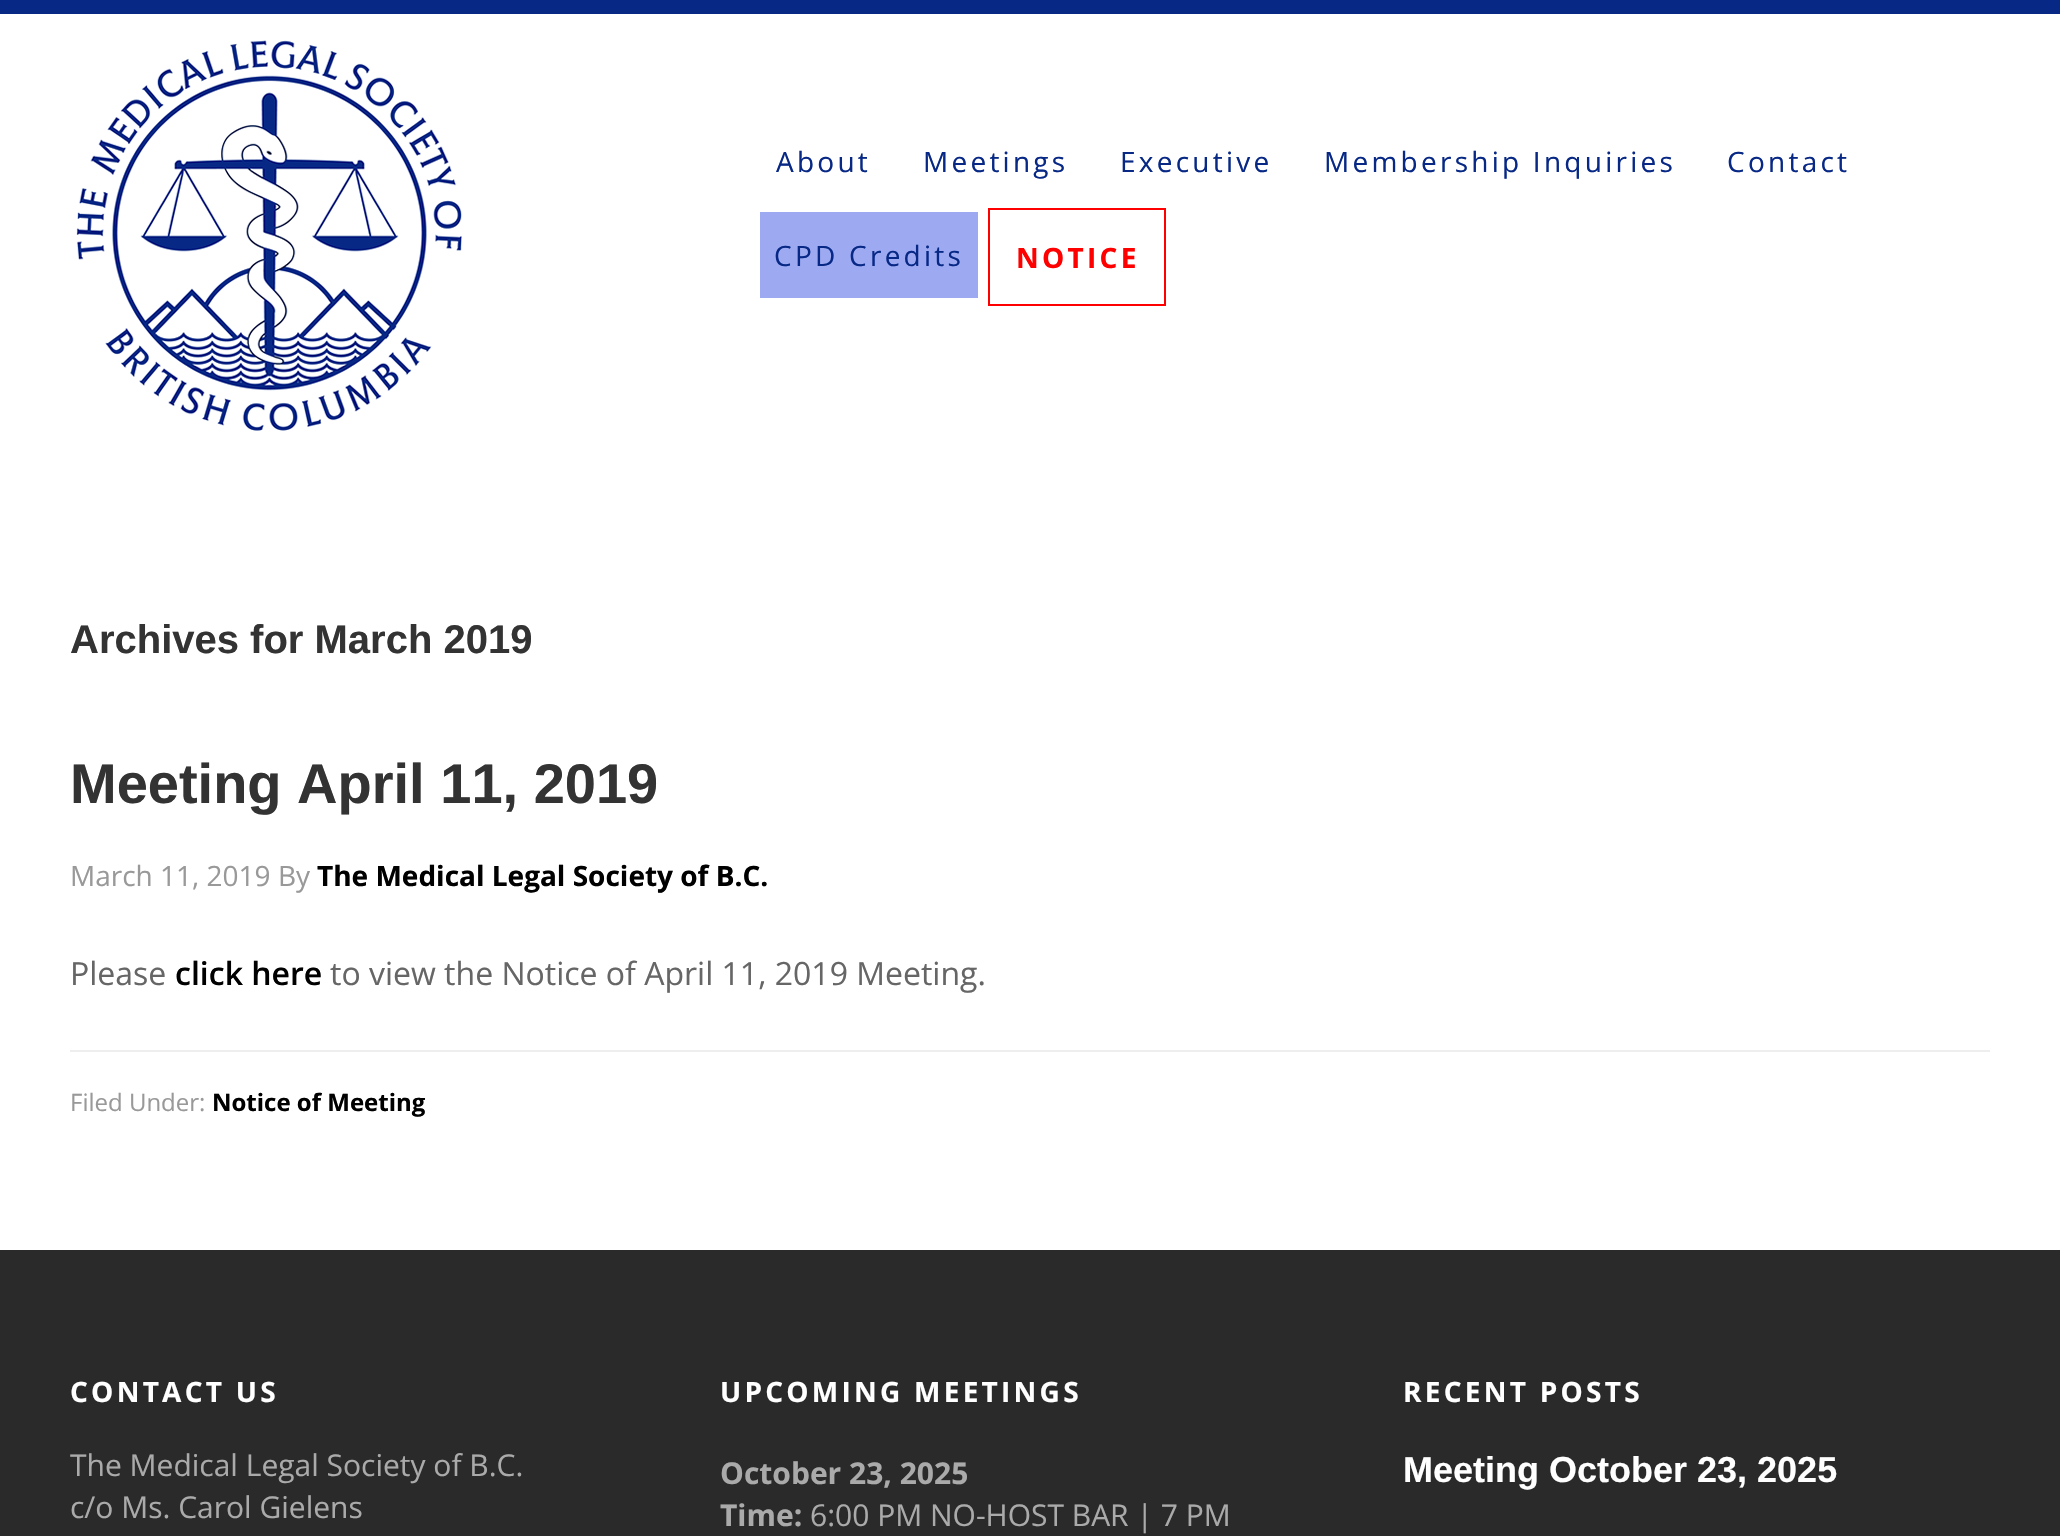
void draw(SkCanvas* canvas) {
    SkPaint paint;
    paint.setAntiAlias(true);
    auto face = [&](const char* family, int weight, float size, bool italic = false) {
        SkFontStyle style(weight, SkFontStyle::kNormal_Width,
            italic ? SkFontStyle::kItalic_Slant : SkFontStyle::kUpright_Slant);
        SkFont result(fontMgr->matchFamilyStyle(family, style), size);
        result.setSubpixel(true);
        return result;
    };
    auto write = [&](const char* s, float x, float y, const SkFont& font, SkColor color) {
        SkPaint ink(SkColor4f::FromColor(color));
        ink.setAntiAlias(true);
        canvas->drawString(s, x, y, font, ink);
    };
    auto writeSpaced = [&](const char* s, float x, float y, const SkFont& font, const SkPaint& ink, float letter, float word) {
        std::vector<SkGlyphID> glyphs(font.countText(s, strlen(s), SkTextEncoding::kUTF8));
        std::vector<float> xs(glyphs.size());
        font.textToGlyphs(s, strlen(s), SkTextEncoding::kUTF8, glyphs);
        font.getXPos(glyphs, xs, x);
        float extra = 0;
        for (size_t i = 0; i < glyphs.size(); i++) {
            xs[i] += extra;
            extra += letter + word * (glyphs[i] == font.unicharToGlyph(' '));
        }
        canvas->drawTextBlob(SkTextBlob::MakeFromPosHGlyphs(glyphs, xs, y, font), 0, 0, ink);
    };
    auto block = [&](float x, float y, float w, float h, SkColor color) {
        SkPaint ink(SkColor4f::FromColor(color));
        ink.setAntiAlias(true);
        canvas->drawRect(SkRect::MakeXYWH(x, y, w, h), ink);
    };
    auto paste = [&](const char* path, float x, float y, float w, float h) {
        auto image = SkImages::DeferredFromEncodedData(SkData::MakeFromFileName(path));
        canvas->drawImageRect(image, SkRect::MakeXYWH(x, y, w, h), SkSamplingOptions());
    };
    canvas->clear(SK_ColorWHITE);
    block(0, 0, 2060, 14, SkColorSetRGB(7, 40, 133));
    paste("pic1.png", 76, 40, 386, 391);
    auto kFont1 = face("Open Sans", 400, 28);
    paint.setColor(SkColorSetRGB(7, 40, 133));
    writeSpaced("About", 776, 172, kFont1, paint, 3.25f, 0);
    writeSpaced("Meetings", 923, 172, kFont1, paint, 3.25f, 0);
    writeSpaced("Executive", 1120, 172, kFont1, paint, 3.25f, 0);
    writeSpaced("Membership Inquiries", 1324, 172, kFont1, paint, 3.25f, 0);
    writeSpaced("Contact", 1727, 172, kFont1, paint, 3.25f, 0);
    block(760, 212, 218, 86, SkColorSetRGB(157, 170, 242));
    writeSpaced("CPD Credits", 774, 266, kFont1, paint, 3.25f, 0);
    paint.setStyle(SkPaint::kStroke_Style);
    paint.setStrokeWidth(2);
    paint.setColor(SkColorSetRGB(255, 0, 0));
    canvas->drawRect(SkRect::MakeXYWH(989, 209, 176, 96), paint);
    auto kFont2 = face("Open Sans", 700, 28);
    paint.setStyle(SkPaint::kFill_Style);
    writeSpaced("NOTICE", 1016, 268, kFont2, paint, 3.25f, 0);
    auto kFont3 = face("Liberation Sans", 700, 40);
    write("Archives for March 2019", 70, 653, kFont3, SkColorSetRGB(51, 51, 51));
    auto kFont4 = face("Liberation Sans", 700, 56);
    write("Meeting April 11, 2019", 70, 803, kFont4, SkColorSetRGB(51, 51, 51));
    write("March 11, 2019 By", 70, 886, kFont1, SkColorSetRGB(153, 153, 153));
    write("The Medical Legal Society of B.C.", 317, 886, kFont2, SK_ColorBLACK);
    auto kFont5 = face("Open Sans", 400, 32);
    write("Please", 70, 985, kFont5, SkColorSetRGB(102, 102, 102));
    auto kFont6 = face("Open Sans", 600, 32);
    write("click here", 175, 985, kFont6, SK_ColorBLACK);
    write("to view the Notice of April 11, 2019 Meeting.", 330, 985, kFont5, SkColorSetRGB(102, 102, 102));
    block(70, 1050, 1920, 2, SkColorSetRGB(238, 238, 238));
    auto kFont7 = face("Open Sans", 400, 24);
    write("Filed Under:", 70, 1111, kFont7, SkColorSetRGB(153, 153, 153));
    auto kFont8 = face("Open Sans", 700, 24);
    write("Notice of Meeting", 212, 1111, kFont8, SK_ColorBLACK);
    block(0, 1250, 2060, 286, SkColorSetRGB(42, 42, 42));
    paint.setColor(SK_ColorWHITE);
    writeSpaced("CONTACT US", 70, 1402, kFont2, paint, 3.25f, 0);
    auto kFont9 = face("Open Sans", 400, 30);
    write("The Medical Legal Society of B.C.", 70, 1476, kFont9, SkColorSetRGB(170, 170, 170));
    write("c/o Ms. Carol Gielens", 70, 1518, kFont9, SkColorSetRGB(170, 170, 170));
    writeSpaced("UPCOMING MEETINGS", 720, 1402, kFont2, paint, 3.25f, 0);
    auto kFont10 = face("Open Sans", 700, 30);
    write("October 23, 2025", 720, 1484, kFont10, SkColorSetRGB(170, 170, 170));
    write("Time:", 720, 1526, kFont10, SkColorSetRGB(170, 170, 170));
    write("6:00 PM NO-HOST BAR | 7 PM", 810, 1526, kFont9, SkColorSetRGB(170, 170, 170));
    writeSpaced("RECENT POSTS", 1403, 1402, kFont2, paint, 3.25f, 0);
    auto kFont11 = face("Liberation Sans", 700, 36);
    write("Meeting October 23, 2025", 1403, 1482, kFont11, SK_ColorWHITE);
}
